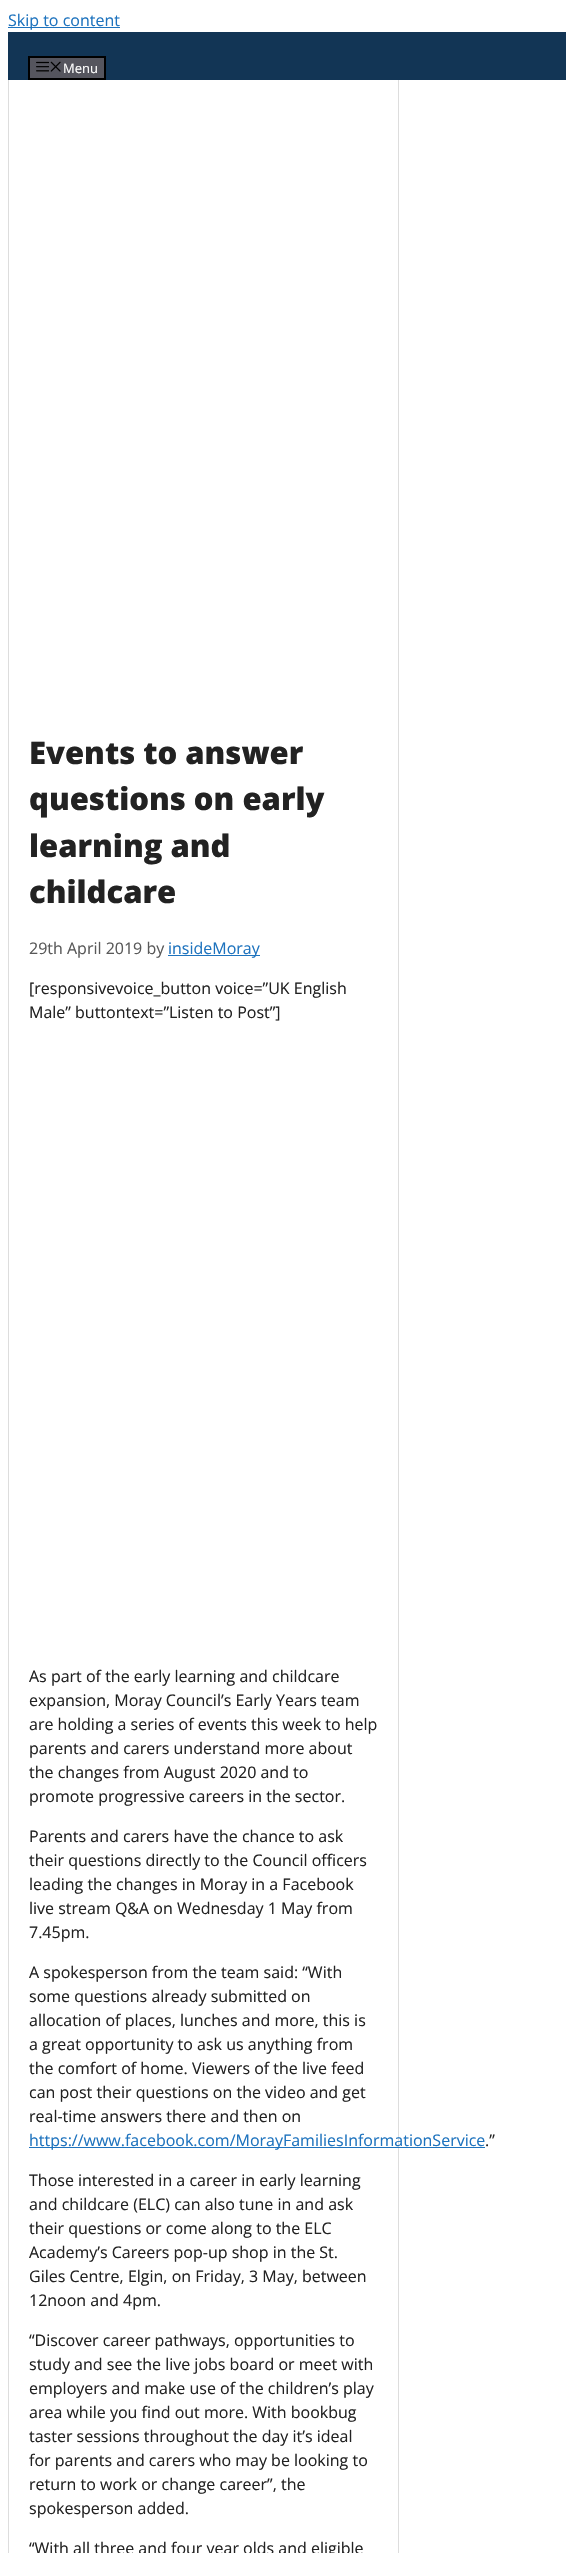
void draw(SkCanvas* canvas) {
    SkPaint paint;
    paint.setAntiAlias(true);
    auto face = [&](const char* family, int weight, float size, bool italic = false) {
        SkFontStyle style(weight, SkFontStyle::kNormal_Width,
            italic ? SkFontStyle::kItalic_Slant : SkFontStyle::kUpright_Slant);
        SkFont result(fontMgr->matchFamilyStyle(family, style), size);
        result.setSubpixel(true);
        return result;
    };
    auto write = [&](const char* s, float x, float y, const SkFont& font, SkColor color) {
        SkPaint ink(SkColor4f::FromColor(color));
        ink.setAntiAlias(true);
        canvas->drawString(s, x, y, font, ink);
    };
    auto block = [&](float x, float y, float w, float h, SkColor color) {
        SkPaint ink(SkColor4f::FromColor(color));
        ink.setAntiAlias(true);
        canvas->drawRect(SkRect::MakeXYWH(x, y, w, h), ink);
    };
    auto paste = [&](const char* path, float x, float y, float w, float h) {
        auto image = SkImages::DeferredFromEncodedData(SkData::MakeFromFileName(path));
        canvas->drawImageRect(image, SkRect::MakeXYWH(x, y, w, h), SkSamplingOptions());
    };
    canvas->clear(SK_ColorWHITE);
    block(8, 27, 112, 1, SkColorSetRGB(30, 115, 190));
    auto kFont1 = face("Open Sans", 400, 16);
    write("Skip to content", 8, 26, kFont1, SkColorSetRGB(30, 115, 190));
    block(8, 32, 558, 48, SkColorSetRGB(18, 53, 85));
    paint.setColor(SkColorSetRGB(85, 85, 94));
    canvas->drawRect(SkRect::MakeXYWH(29, 57, 76, 22), paint);
    paint.setStyle(SkPaint::kStroke_Style);
    paint.setStrokeWidth(2);
    paint.setColor(SK_ColorBLACK);
    canvas->drawRect(SkRect::MakeXYWH(29, 57, 76, 22), paint);
    paste("pic1.png", 36, 61, 13, 11);
    paste("pic2.png", 50, 61, 11, 11);
    auto kFont2 = face("Open Sans", 400, 13);
    write("Menu", 63, 73, kFont2, SK_ColorWHITE);
    block(398, 80, 1, 2473, SkColorSetRGB(221, 221, 221));
    block(8, 80, 1, 2473, SkColorSetRGB(221, 221, 221));
    auto kFont3 = face("Open Sans", 800, 31);
    write("Events to answer", 29, 764, kFont3, SkColorSetRGB(34, 34, 34));
    write("questions on early", 29, 810, kFont3, SkColorSetRGB(34, 34, 34));
    write("learning and", 29, 857, kFont3, SkColorSetRGB(34, 34, 34));
    write("childcare", 29, 903, kFont3, SkColorSetRGB(34, 34, 34));
    write("29th April 2019 by", 29, 954, kFont1, SkColorSetRGB(89, 89, 89));
    block(168, 955, 92, 1, SkColorSetRGB(30, 115, 190));
    write("insideMoray", 168, 954, kFont1, SkColorSetRGB(30, 115, 190));
    write("[responsivevoice_button voice=”UK English", 29, 994, kFont1, SkColorSetRGB(34, 34, 34));
    write("Male” buttontext=”Listen to Post”]", 29, 1018, kFont1, SkColorSetRGB(34, 34, 34));
    write("As part of the early learning and childcare", 29, 1682, kFont1, SkColorSetRGB(34, 34, 34));
    write("expansion, Moray Council’s Early Years team", 29, 1706, kFont1, SkColorSetRGB(34, 34, 34));
    write("are holding a series of events this week to help", 29, 1730, kFont1, SkColorSetRGB(34, 34, 34));
    write("parents and carers understand more about", 29, 1754, kFont1, SkColorSetRGB(34, 34, 34));
    write("the changes from August 2020 and to", 29, 1778, kFont1, SkColorSetRGB(34, 34, 34));
    write("promote progressive careers in the sector.", 29, 1802, kFont1, SkColorSetRGB(34, 34, 34));
    write("Parents and carers have the chance to ask", 29, 1842, kFont1, SkColorSetRGB(34, 34, 34));
    write("their questions directly to the Council officers", 29, 1866, kFont1, SkColorSetRGB(34, 34, 34));
    write("leading the changes in Moray in a Facebook", 29, 1890, kFont1, SkColorSetRGB(34, 34, 34));
    write("live stream Q&A on Wednesday 1 May from", 29, 1914, kFont1, SkColorSetRGB(34, 34, 34));
    write("7.45pm.", 29, 1938, kFont1, SkColorSetRGB(34, 34, 34));
    write("A spokesperson from the team said: “With", 29, 1978, kFont1, SkColorSetRGB(34, 34, 34));
    write("some questions already submitted on", 29, 2002, kFont1, SkColorSetRGB(34, 34, 34));
    write("allocation of places, lunches and more, this is", 29, 2026, kFont1, SkColorSetRGB(34, 34, 34));
    write("a great opportunity to ask us anything from", 29, 2050, kFont1, SkColorSetRGB(34, 34, 34));
    write("the comfort of home. Viewers of the live feed", 29, 2074, kFont1, SkColorSetRGB(34, 34, 34));
    write("can post their questions on the video and get", 29, 2098, kFont1, SkColorSetRGB(34, 34, 34));
    write("real-time answers there and then on", 29, 2122, kFont1, SkColorSetRGB(34, 34, 34));
    block(29, 2147, 456, 1, SkColorSetRGB(30, 115, 190));
    write("https://www.facebook.com/MorayFamiliesInformationService", 29, 2146, kFont1, SkColorSetRGB(30, 115, 190));
    write(".”", 485, 2146, kFont1, SkColorSetRGB(34, 34, 34));
    write("Those interested in a career in early learning", 29, 2186, kFont1, SkColorSetRGB(34, 34, 34));
    write("and childcare (ELC) can also tune in and ask", 29, 2210, kFont1, SkColorSetRGB(34, 34, 34));
    write("their questions or come along to the ELC", 29, 2234, kFont1, SkColorSetRGB(34, 34, 34));
    write("Academy’s Careers pop-up shop in the St.", 29, 2258, kFont1, SkColorSetRGB(34, 34, 34));
    write("Giles Centre, Elgin, on Friday, 3 May, between", 29, 2282, kFont1, SkColorSetRGB(34, 34, 34));
    write("12noon and 4pm.", 29, 2306, kFont1, SkColorSetRGB(34, 34, 34));
    write("“Discover career pathways, opportunities to", 29, 2346, kFont1, SkColorSetRGB(34, 34, 34));
    write("study and see the live jobs board or meet with", 29, 2370, kFont1, SkColorSetRGB(34, 34, 34));
    write("employers and make use of the children’s play", 29, 2394, kFont1, SkColorSetRGB(34, 34, 34));
    write("area while you find out more. With bookbug", 29, 2418, kFont1, SkColorSetRGB(34, 34, 34));
    write("taster sessions throughout the day it’s ideal", 29, 2442, kFont1, SkColorSetRGB(34, 34, 34));
    write("for parents and carers who may be looking to", 29, 2466, kFont1, SkColorSetRGB(34, 34, 34));
    write("return to work or change career”, the", 29, 2490, kFont1, SkColorSetRGB(34, 34, 34));
    write("spokesperson added.", 29, 2514, kFont1, SkColorSetRGB(34, 34, 34));
    write("“With all three and four year olds and eligible", 29, 2554, kFont1, SkColorSetRGB(34, 34, 34));
}
